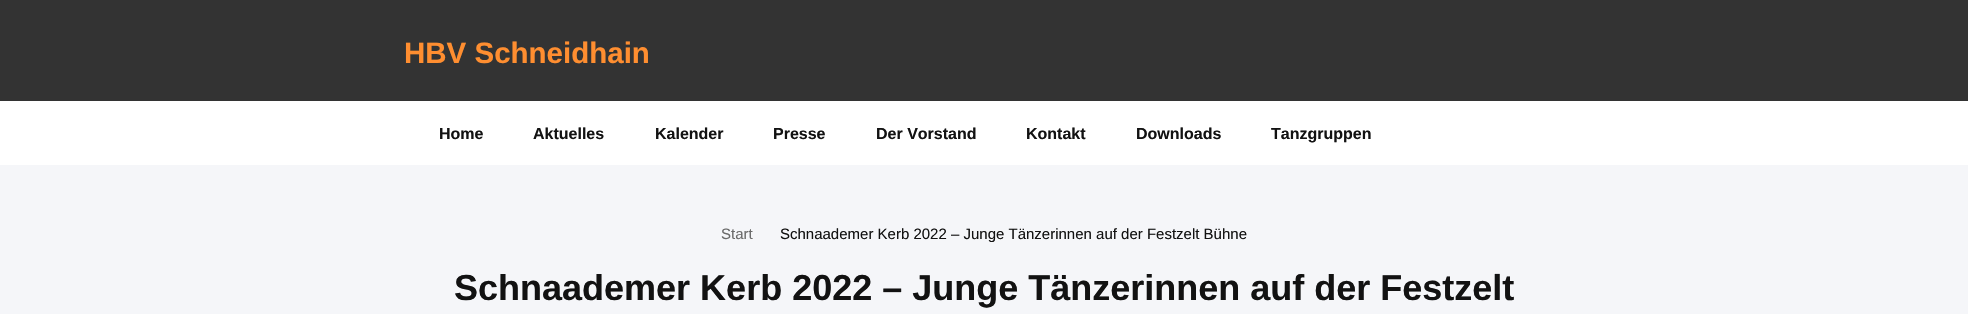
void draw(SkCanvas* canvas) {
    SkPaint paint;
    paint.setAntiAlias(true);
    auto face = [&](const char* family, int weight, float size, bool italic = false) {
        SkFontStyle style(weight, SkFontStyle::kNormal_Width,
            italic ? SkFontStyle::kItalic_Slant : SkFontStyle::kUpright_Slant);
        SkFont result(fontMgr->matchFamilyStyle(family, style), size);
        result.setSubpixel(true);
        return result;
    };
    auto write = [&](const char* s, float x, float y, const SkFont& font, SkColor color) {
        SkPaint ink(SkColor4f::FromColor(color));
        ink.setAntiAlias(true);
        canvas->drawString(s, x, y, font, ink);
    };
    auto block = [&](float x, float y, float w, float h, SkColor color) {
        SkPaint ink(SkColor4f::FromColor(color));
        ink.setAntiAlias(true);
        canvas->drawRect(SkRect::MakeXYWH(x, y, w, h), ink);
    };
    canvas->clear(SK_ColorWHITE);
    block(0, 0, 1968, 101, SkColorSetRGB(51, 51, 51));
    auto kFont1 = face("Liberation Sans", 700, 29.5f);
    write("HBV Schneidhain", 404, 63, kFont1, SkColorSetRGB(255, 142, 48));
    auto kFont2 = face("Liberation Sans", 700, 16);
    write("Home", 439, 139, kFont2, SkColorSetRGB(18, 18, 18));
    write("Aktuelles", 533, 139, kFont2, SkColorSetRGB(18, 18, 18));
    write("Kalender", 655, 139, kFont2, SkColorSetRGB(18, 18, 18));
    write("Presse", 773, 139, kFont2, SkColorSetRGB(18, 18, 18));
    write("Der Vorstand", 876, 139, kFont2, SkColorSetRGB(18, 18, 18));
    write("Kontakt", 1026, 139, kFont2, SkColorSetRGB(18, 18, 18));
    write("Downloads", 1136, 139, kFont2, SkColorSetRGB(18, 18, 18));
    write("Tanzgruppen", 1271, 139, kFont2, SkColorSetRGB(18, 18, 18));
    block(0, 165, 1968, 149, SkColorSetRGB(245, 246, 249));
    auto kFont3 = face("Liberation Sans", 400, 15);
    write("Start", 721, 239, kFont3, SkColorSetRGB(106, 106, 106));
    write("Schnaademer Kerb 2022 – Junge Tänzerinnen auf der Festzelt Bühne", 780, 239, kFont3, SkColorSetRGB(18, 18, 18));
    auto kFont4 = face("Liberation Sans", 700, 36);
    write("Schnaademer Kerb 2022 – Junge Tänzerinnen auf der Festzelt", 454, 300, kFont4, SkColorSetRGB(18, 18, 18));
}
